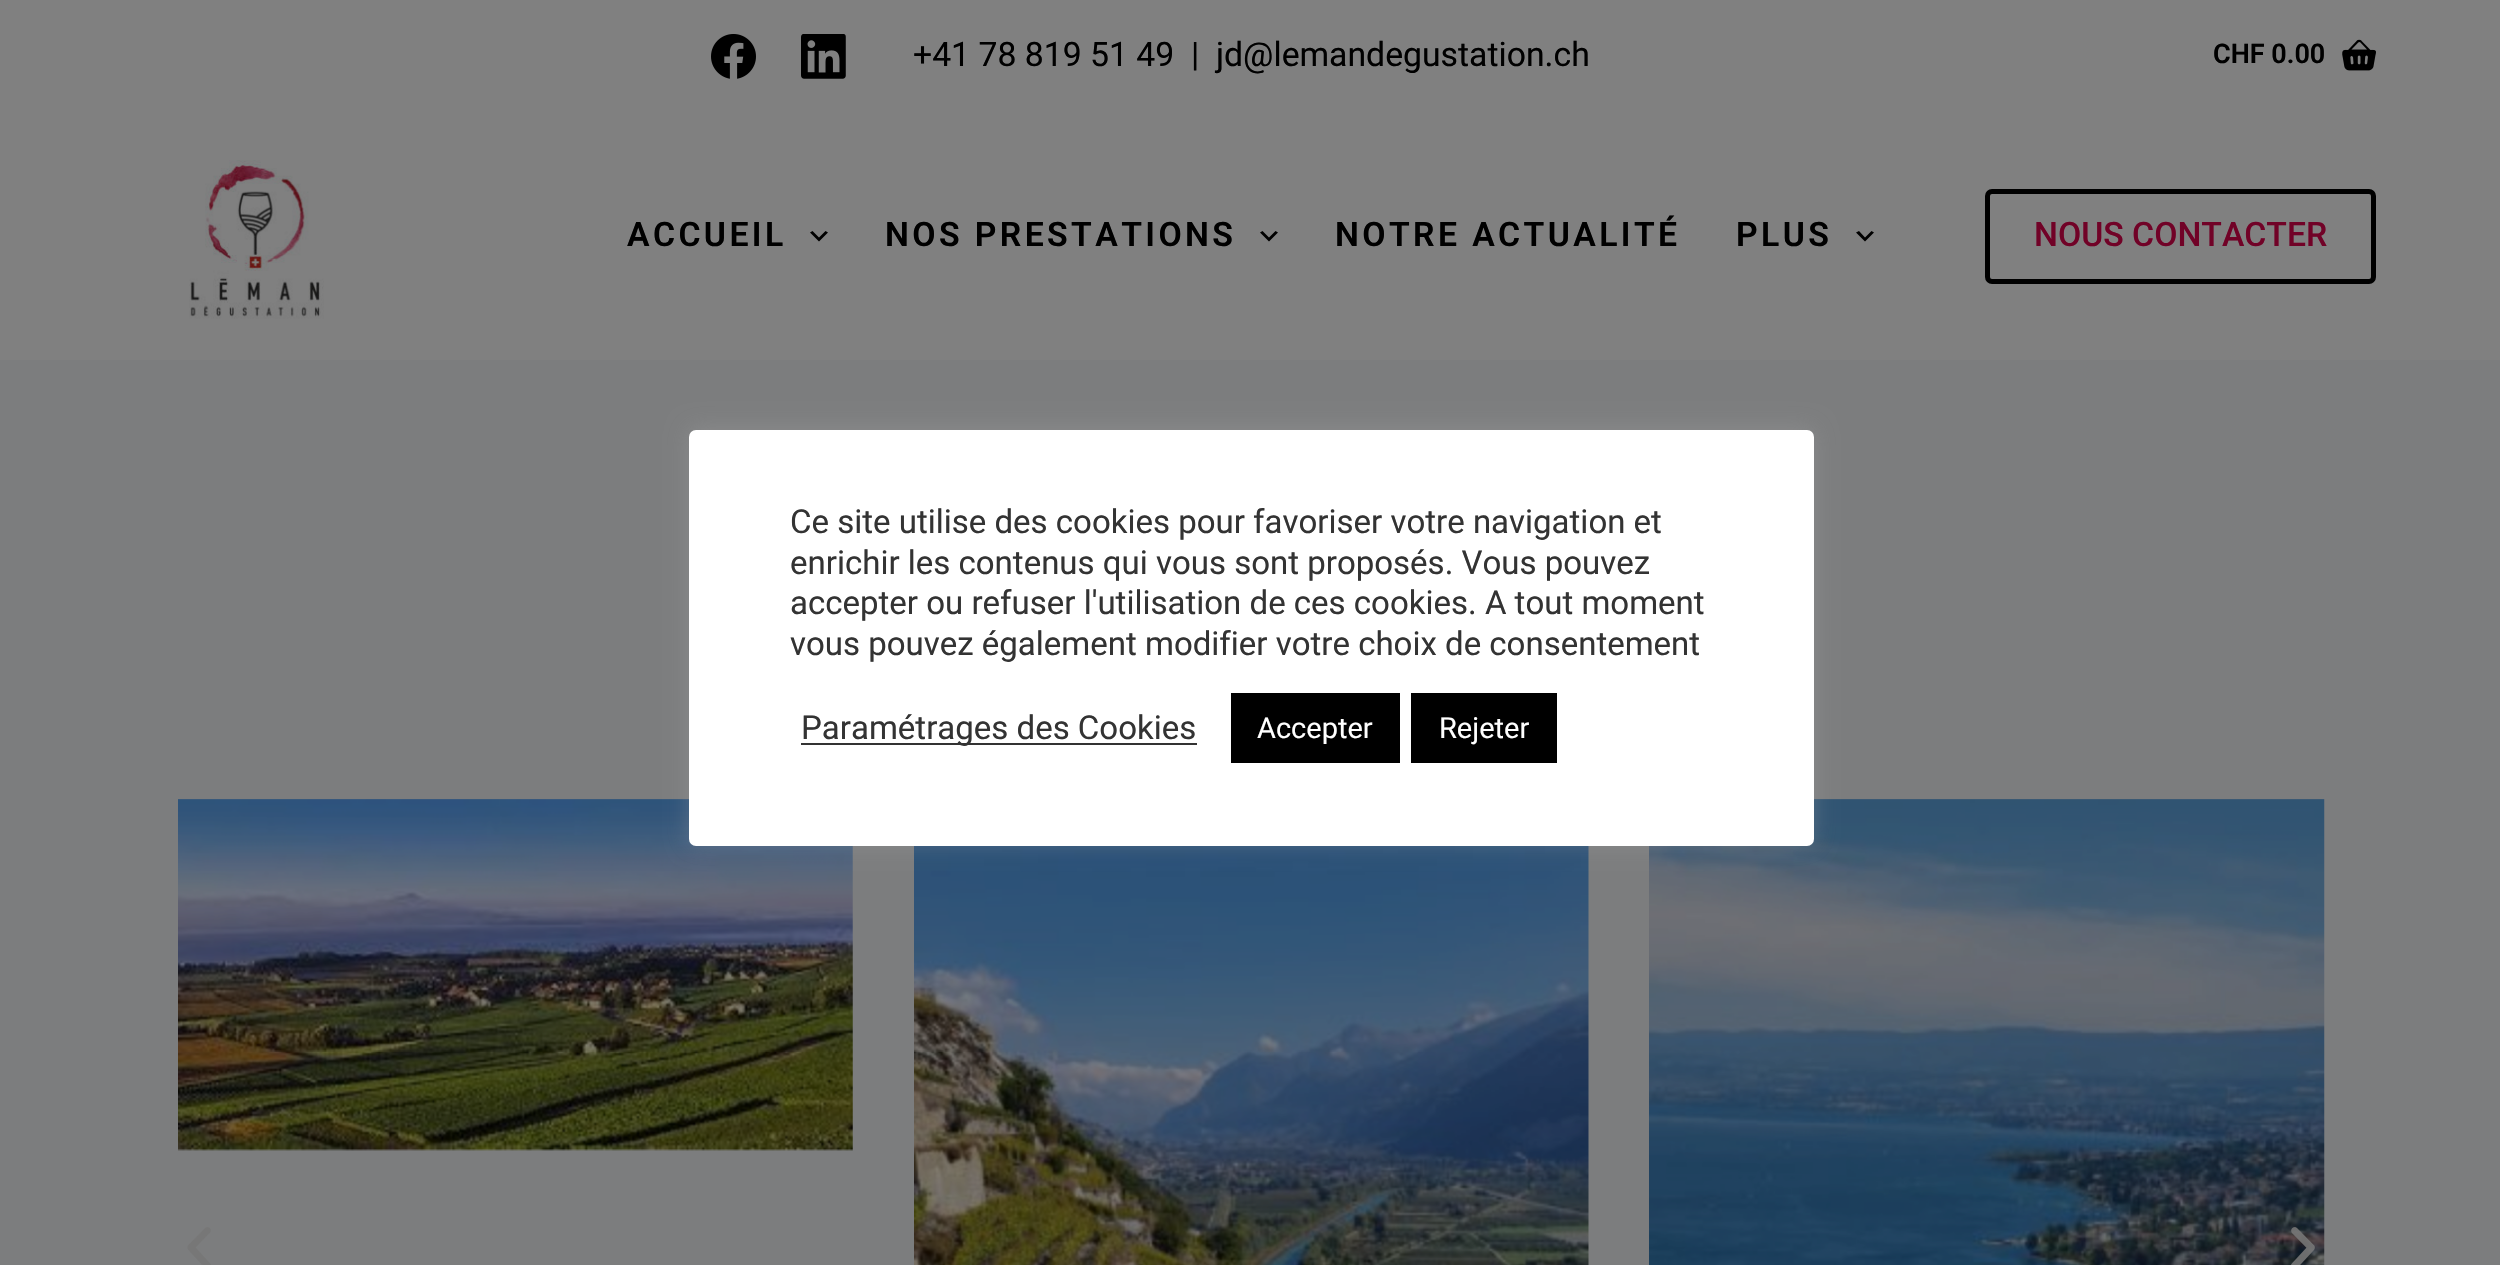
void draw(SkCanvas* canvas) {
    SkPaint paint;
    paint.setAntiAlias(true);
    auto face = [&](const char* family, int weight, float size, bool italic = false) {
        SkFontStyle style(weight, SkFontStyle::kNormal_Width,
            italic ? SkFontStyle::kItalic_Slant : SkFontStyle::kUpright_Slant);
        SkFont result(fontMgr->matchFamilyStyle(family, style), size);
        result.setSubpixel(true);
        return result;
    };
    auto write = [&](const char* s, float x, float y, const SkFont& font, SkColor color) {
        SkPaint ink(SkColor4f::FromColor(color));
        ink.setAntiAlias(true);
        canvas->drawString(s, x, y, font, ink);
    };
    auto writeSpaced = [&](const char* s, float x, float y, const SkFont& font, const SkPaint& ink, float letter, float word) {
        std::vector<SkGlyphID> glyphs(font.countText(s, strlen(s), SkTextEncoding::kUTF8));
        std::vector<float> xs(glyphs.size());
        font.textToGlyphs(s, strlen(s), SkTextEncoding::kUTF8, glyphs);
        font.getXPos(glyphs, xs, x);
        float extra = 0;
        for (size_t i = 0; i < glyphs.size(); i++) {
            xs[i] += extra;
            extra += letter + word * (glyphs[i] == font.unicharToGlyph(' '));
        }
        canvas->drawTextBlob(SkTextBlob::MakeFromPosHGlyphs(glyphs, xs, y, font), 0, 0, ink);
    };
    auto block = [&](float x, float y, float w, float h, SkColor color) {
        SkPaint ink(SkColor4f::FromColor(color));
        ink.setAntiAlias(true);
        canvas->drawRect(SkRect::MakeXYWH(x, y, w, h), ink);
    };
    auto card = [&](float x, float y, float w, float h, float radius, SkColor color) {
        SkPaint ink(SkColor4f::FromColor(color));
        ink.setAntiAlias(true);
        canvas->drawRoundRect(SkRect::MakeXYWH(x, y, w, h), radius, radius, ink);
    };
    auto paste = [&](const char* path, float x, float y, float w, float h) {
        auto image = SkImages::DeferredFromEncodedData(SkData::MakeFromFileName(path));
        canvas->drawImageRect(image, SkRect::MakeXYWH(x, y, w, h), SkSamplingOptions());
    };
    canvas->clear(SkColorSetRGB(124, 125, 126));
    block(0, 0, 2500, 360, SkColorSetRGB(128, 128, 128));
    paste("pic1.png", 711, 34, 45, 45);
    paste("pic2.png", 801, 34, 45, 45);
    auto kFont1 = face("Roboto", 400, 33.75f);
    write("+41 78 819 51 49  |  jd@lemandegustation.ch", 913, 66, kFont1, SK_ColorBLACK);
    auto kFont2 = face("Roboto", 600, 27);
    write("CHF 0.00", 2213, 63, kFont2, SK_ColorBLACK);
    paste("pic3.png", 2342, 39, 34, 32);
    paste("pic4.png", 189, 160, 135, 159);
    auto kFont3 = face("Roboto", 600, 33.75f);
    paint.setColor(SK_ColorBLACK);
    writeSpaced("ACCUEIL", 627, 246, kFont3, paint, 3.4f, 0);
    canvas->drawPath(SkPathBuilder().moveTo(812.5f, 231).lineTo(819, 237.5f).lineTo(825.5f, 231).lineTo(828, 232.5f).lineTo(819, 241.5f).lineTo(810, 232.5f).close().detach(), paint);
    writeSpaced("NOS PRESTATIONS", 885, 246, kFont3, paint, 3.4f, 0);
    canvas->drawPath(SkPathBuilder().moveTo(1262.5f, 231).lineTo(1269, 237.5f).lineTo(1275.5f, 231).lineTo(1278, 232.5f).lineTo(1269, 241.5f).lineTo(1260, 232.5f).close().detach(), paint);
    writeSpaced("NOTRE ACTUALITÉ", 1335, 246, kFont3, paint, 3.4f, 0);
    writeSpaced("PLUS", 1736, 246, kFont3, paint, 3.4f, 0);
    canvas->drawPath(SkPathBuilder().moveTo(1859, 231).lineTo(1865, 237.5f).lineTo(1871.5f, 231).lineTo(1874, 232.5f).lineTo(1865, 241.5f).lineTo(1856, 232.5f).close().detach(), paint);
    paint.setStyle(SkPaint::kStroke_Style);
    paint.setStrokeWidth(5);
    canvas->drawRoundRect(SkRect::MakeXYWH(1987.5f, 191.5f, 386, 90), 4.5f, 4.5f, paint);
    auto kFont4 = face("Roboto", 500, 33.75f);
    write("NOUS CONTACTER", 2034, 246, kFont4, SkColorSetRGB(113, 2, 39));
    paste("pic5.png", 178, 799, 675, 352);
    paste("pic6.png", 914, 846, 675, 419);
    paste("pic7.png", 1649, 799, 676, 466);
    paste("pic8.png", 187, 1227, 24, 38);
    paste("pic9.png", 2291, 1227, 24, 38);
    paint.setStyle(SkPaint::kFill_Style);
    paint.setColor(SkColorSetARGB(77, 172, 171, 171));
    paint.setMaskFilter(SkMaskFilter::MakeBlur(kNormal_SkBlurStyle, 11));
    canvas->drawRoundRect(SkRect::MakeXYWH(689, 428, 1125, 416), 7, 7, paint);
    paint.setMaskFilter(nullptr);
    card(689, 430, 1125, 416, 7, SK_ColorWHITE);
    auto kFont5 = face("Roboto", 400, 33);
    write("Ce site utilise des cookies pour favoriser votre navigation et", 790, 533, kFont5, SkColorSetRGB(51, 51, 51));
    write("enrichir les contenus qui vous sont proposés. Vous pouvez", 790, 574, kFont5, SkColorSetRGB(51, 51, 51));
    write("accepter ou refuser l'utilisation de ces cookies. A tout moment", 790, 614, kFont5, SkColorSetRGB(51, 51, 51));
    write("vous pouvez également modifier votre choix de consentement", 790, 655, kFont5, SkColorSetRGB(51, 51, 51));
    block(801, 743, 396, 2, SkColorSetRGB(51, 51, 51));
    write("Paramétrages des Cookies", 801, 739, kFont5, SkColorSetRGB(51, 51, 51));
    block(1231, 693, 169, 70, SK_ColorBLACK);
    auto kFont6 = face("Roboto", 400, 29);
    write("Accepter", 1257, 738, kFont6, SK_ColorWHITE);
    block(1411, 693, 146, 70, SK_ColorBLACK);
    write("Rejeter", 1439, 738, kFont6, SK_ColorWHITE);
}
